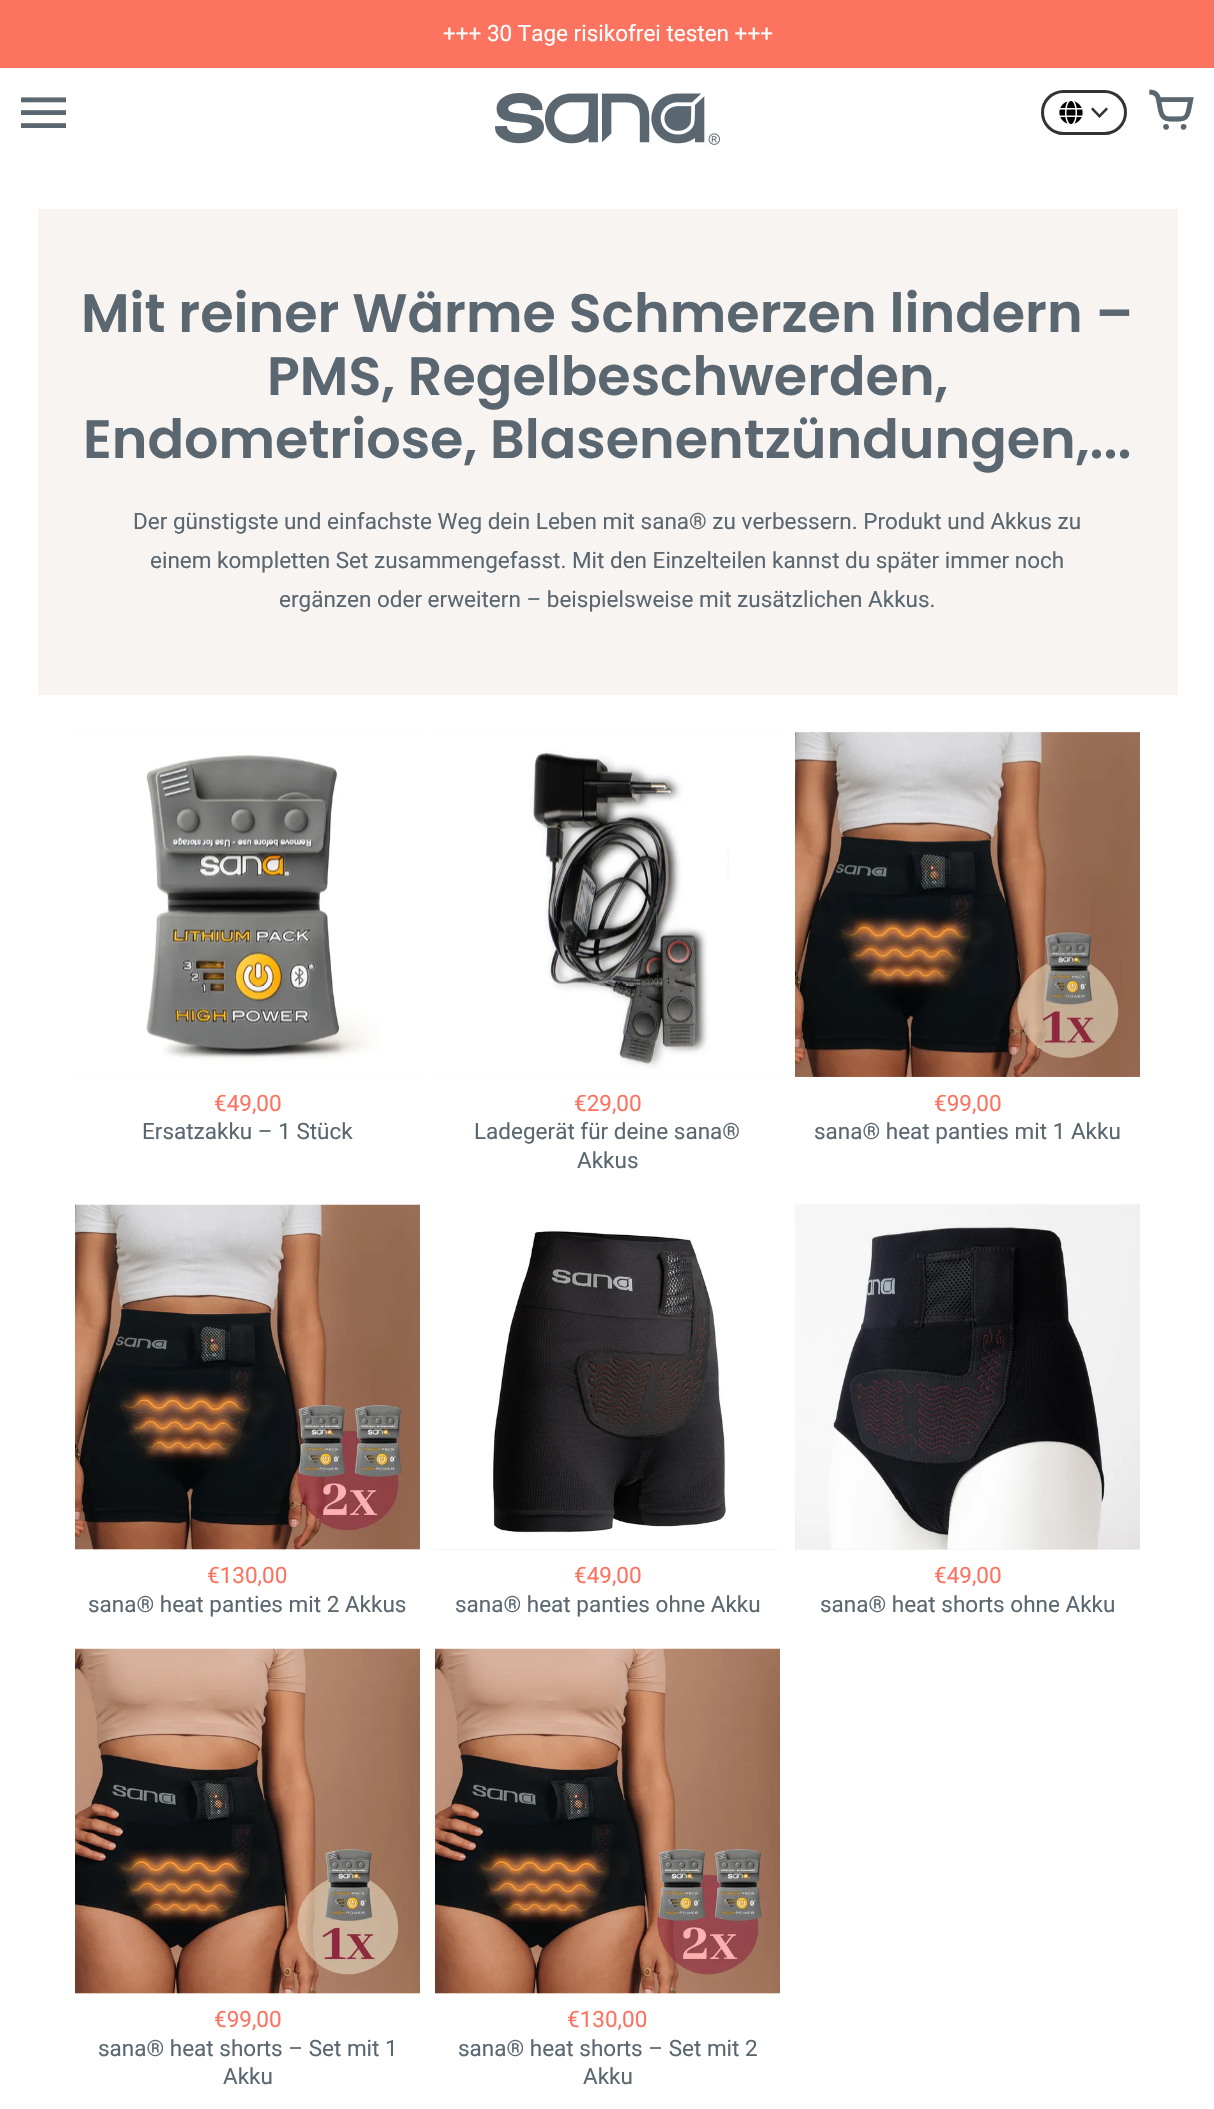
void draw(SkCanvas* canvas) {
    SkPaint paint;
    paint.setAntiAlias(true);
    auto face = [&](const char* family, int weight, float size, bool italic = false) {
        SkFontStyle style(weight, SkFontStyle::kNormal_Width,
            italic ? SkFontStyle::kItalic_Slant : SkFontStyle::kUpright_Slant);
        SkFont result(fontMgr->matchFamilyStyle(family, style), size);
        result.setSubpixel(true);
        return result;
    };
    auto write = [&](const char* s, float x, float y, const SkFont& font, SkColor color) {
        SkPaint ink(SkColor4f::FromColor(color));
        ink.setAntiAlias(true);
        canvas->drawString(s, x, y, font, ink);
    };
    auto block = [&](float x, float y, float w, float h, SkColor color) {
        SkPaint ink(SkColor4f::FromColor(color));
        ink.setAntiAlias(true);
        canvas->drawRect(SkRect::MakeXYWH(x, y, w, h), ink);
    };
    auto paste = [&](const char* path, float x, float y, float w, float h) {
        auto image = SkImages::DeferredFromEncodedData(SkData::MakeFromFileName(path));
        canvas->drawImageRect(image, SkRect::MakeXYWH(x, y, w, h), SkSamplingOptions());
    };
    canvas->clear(SK_ColorWHITE);
    block(0, 0, 1214, 68, SkColorSetRGB(252, 115, 96));
    auto kFont1 = face("Roboto", 400, 22.5f);
    write("+++ 30 Tage risikofrei testen +++", 443, 41, kFont1, SK_ColorWHITE);
    auto kFont2 = face("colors", 400, 45);
    write("1", 21, 138, kFont2, SkColorSetRGB(91, 103, 112));
    paste("pic1.png", 495, 93, 225, 52);
    paint.setStyle(SkPaint::kStroke_Style);
    paint.setStrokeWidth(3);
    paint.setColor(SkColorSetRGB(51, 51, 51));
    canvas->drawRoundRect(SkRect::MakeXYWH(1042.5f, 91.5f, 83, 42), 21, 21, paint);
    paste("pic2.png", 1059, 101, 24, 24);
    paste("pic3.png", 1091, 107, 17, 11);
    write("3", 1149, 135, kFont2, SkColorSetRGB(91, 103, 112));
    block(38, 209, 1140, 486, SkColorSetRGB(247, 244, 241));
    auto kFont3 = face("Poppins", 600, 54);
    write("Mit reiner Wärme Schmerzen lindern –", 81, 332, kFont3, SkColorSetRGB(91, 103, 112));
    write("PMS, Regelbeschwerden,", 267, 395, kFont3, SkColorSetRGB(91, 103, 112));
    write("Endometriose, Blasenentzündungen,...", 83, 458, kFont3, SkColorSetRGB(91, 103, 112));
    write("Der günstigste und einfachste Weg dein Leben mit sana® zu verbessern. Produkt und Akkus zu", 133, 529, kFont1, SkColorSetRGB(91, 103, 112));
    write("einem kompletten Set zusammengefasst. Mit den Einzelteilen kannst du später immer noch", 150, 568, kFont1, SkColorSetRGB(91, 103, 112));
    write("ergänzen oder erweitern – beispielsweise mit zusätzlichen Akkus.", 279, 607, kFont1, SkColorSetRGB(91, 103, 112));
    block(75, 732, 345, 345, SkColorSetRGB(247, 244, 241));
    paste("pic4.png", 75, 732, 345, 345);
    write("€49,00", 214, 1111, kFont1, SkColorSetRGB(253, 115, 97));
    write("Ersatzakku – 1 Stück", 142, 1139, kFont1, SkColorSetRGB(91, 103, 112));
    block(435, 732, 345, 345, SkColorSetRGB(247, 244, 241));
    paste("pic5.png", 435, 732, 345, 345);
    write("€29,00", 574, 1111, kFont1, SkColorSetRGB(253, 115, 97));
    write("Ladegerät für deine sana®", 474, 1139, kFont1, SkColorSetRGB(91, 103, 112));
    write("Akkus", 577, 1168, kFont1, SkColorSetRGB(91, 103, 112));
    paste("pic6.png", 795, 732, 345, 345);
    write("€99,00", 934, 1111, kFont1, SkColorSetRGB(253, 115, 97));
    write("sana® heat panties mit 1 Akku", 814, 1139, kFont1, SkColorSetRGB(91, 103, 112));
    block(75, 1549, 345, 1, SkColorSetRGB(247, 244, 241));
    paste("pic7.png", 75, 1204, 345, 346);
    write("€130,00", 207, 1583, kFont1, SkColorSetRGB(253, 115, 97));
    write("sana® heat panties mit 2 Akkus", 88, 1612, kFont1, SkColorSetRGB(91, 103, 112));
    block(435, 1549, 345, 1, SkColorSetRGB(247, 244, 241));
    paste("pic8.png", 435, 1205, 345, 344);
    write("€49,00", 574, 1583, kFont1, SkColorSetRGB(253, 115, 97));
    write("sana® heat panties ohne Akku", 455, 1612, kFont1, SkColorSetRGB(91, 103, 112));
    block(795, 1549, 345, 1, SkColorSetRGB(247, 244, 241));
    paste("pic9.png", 795, 1204, 345, 346);
    write("€49,00", 934, 1583, kFont1, SkColorSetRGB(253, 115, 97));
    write("sana® heat shorts ohne Akku", 820, 1612, kFont1, SkColorSetRGB(91, 103, 112));
    block(75, 1993, 345, 1, SkColorSetRGB(247, 244, 241));
    paste("pic10.png", 75, 1648, 345, 346);
    write("€99,00", 214, 2027, kFont1, SkColorSetRGB(253, 115, 97));
    write("sana® heat shorts – Set mit 1", 98, 2056, kFont1, SkColorSetRGB(91, 103, 112));
    write("Akku", 223, 2084, kFont1, SkColorSetRGB(91, 103, 112));
    block(435, 1993, 345, 1, SkColorSetRGB(247, 244, 241));
    paste("pic11.png", 435, 1648, 345, 346);
    write("€130,00", 567, 2027, kFont1, SkColorSetRGB(253, 115, 97));
    write("sana® heat shorts – Set mit 2", 458, 2056, kFont1, SkColorSetRGB(91, 103, 112));
    write("Akku", 583, 2084, kFont1, SkColorSetRGB(91, 103, 112));
}
